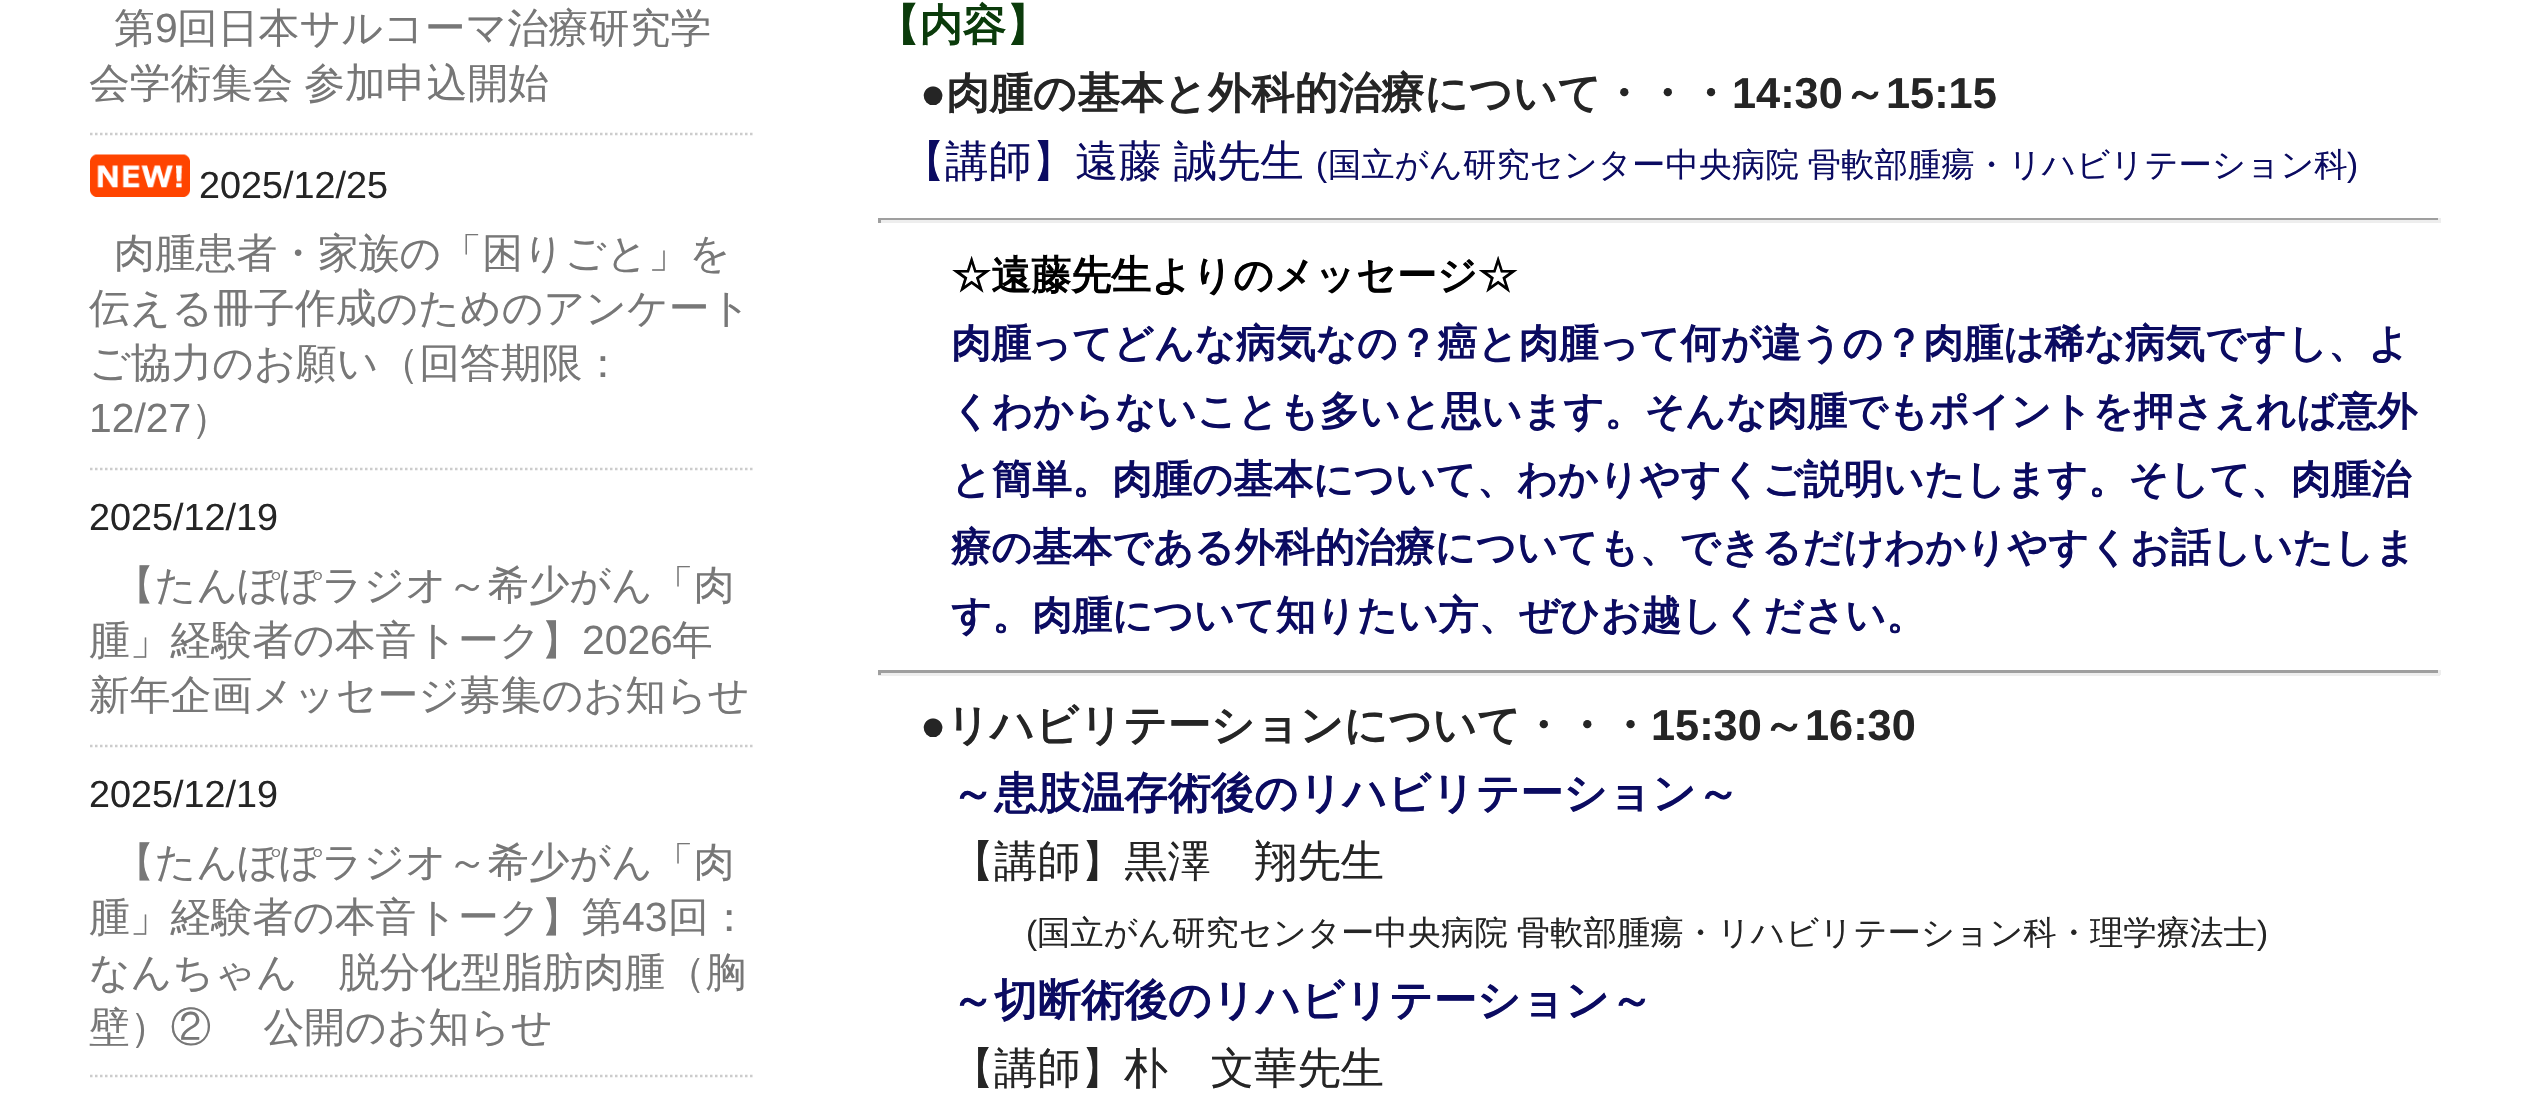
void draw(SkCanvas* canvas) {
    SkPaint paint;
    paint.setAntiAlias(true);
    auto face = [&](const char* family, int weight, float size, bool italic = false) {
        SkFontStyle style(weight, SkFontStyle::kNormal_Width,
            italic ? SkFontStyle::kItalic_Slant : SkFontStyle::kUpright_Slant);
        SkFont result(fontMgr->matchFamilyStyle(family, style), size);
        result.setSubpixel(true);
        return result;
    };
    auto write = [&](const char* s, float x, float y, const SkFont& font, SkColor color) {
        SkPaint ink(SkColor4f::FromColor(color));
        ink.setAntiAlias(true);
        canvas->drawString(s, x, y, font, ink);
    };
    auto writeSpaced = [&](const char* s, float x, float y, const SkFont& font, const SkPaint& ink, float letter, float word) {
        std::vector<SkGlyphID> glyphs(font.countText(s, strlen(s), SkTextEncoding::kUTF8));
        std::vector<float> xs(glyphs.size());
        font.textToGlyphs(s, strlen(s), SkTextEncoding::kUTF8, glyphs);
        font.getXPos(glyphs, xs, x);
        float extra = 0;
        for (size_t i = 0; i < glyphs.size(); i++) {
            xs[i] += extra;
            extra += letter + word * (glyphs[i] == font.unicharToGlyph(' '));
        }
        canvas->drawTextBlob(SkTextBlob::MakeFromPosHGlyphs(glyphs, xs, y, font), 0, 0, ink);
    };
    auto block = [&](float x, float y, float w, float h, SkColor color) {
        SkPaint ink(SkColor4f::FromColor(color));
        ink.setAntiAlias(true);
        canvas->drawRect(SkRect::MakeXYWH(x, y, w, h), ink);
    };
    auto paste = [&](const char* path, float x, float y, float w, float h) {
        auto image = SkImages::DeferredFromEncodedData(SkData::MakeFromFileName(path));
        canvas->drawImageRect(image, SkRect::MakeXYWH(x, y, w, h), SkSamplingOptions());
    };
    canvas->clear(SK_ColorWHITE);
    paint.setStyle(SkPaint::kStroke_Style);
    paint.setStrokeWidth(2.5f);
    paint.setColor(SkColorSetRGB(204, 204, 204));
    paint.setPathEffect(SkDashPathEffect::Make({{2.5f, 2.5f}}, 0));
    canvas->drawPath(SkPathBuilder().moveTo(90, 134).lineTo(752.5f, 134).detach(), paint);
    paint.setPathEffect(nullptr);
    auto kFont1 = face("WenQuanYi Zen Hei", 500, 40.8f);
    write("第", 114, 42, kFont1, SkColorSetRGB(119, 119, 119));
    auto kFont2 = face("Liberation Sans", 400, 40.8f);
    write("9", 155, 42, kFont2, SkColorSetRGB(119, 119, 119));
    write("回日本サルコーマ治療研究学", 177, 42, kFont1, SkColorSetRGB(119, 119, 119));
    paint.setStyle(SkPaint::kFill_Style);
    paint.setColor(SkColorSetRGB(119, 119, 119));
    writeSpaced("会学術集会 参加申込開始", 89, 97, kFont1, paint, 0, -1);
    paint.setStyle(SkPaint::kStroke_Style);
    paint.setColor(SkColorSetRGB(204, 204, 204));
    paint.setPathEffect(SkDashPathEffect::Make({{2.5f, 2.5f}}, 0));
    canvas->drawPath(SkPathBuilder().moveTo(90, 469).lineTo(752.5f, 469).detach(), paint);
    paint.setPathEffect(nullptr);
    paste("pic1.png", 90, 154, 100, 43);
    auto kFont3 = face("Liberation Sans", 400, 37.75f);
    write("2025/12/25", 199, 198, kFont3, SkColorSetRGB(37, 37, 37));
    write("肉腫患者・家族の「困りごと」を", 114, 267, kFont1, SkColorSetRGB(119, 119, 119));
    write("伝える冊子作成のためのアンケート", 89, 322, kFont1, SkColorSetRGB(119, 119, 119));
    write("ご協力のお願い（回答期限：", 89, 377, kFont1, SkColorSetRGB(119, 119, 119));
    write("12/27", 89, 432, kFont2, SkColorSetRGB(119, 119, 119));
    write("）", 191, 432, kFont1, SkColorSetRGB(119, 119, 119));
    paint.setPathEffect(SkDashPathEffect::Make({{2.5f, 2.5f}}, 0));
    canvas->drawPath(SkPathBuilder().moveTo(90, 746).lineTo(752.5f, 746).detach(), paint);
    paint.setPathEffect(nullptr);
    write("2025/12/19", 89, 530, kFont3, SkColorSetRGB(37, 37, 37));
    write("【たんぽぽラジオ～希少がん「肉", 114, 599, kFont1, SkColorSetRGB(119, 119, 119));
    write("腫」経験者の本音トーク】", 89, 654, kFont1, SkColorSetRGB(119, 119, 119));
    write("2026", 582, 654, kFont2, SkColorSetRGB(119, 119, 119));
    write("年", 672, 654, kFont1, SkColorSetRGB(119, 119, 119));
    write("新年企画メッセージ募集のお知らせ", 89, 709, kFont1, SkColorSetRGB(119, 119, 119));
    paint.setPathEffect(SkDashPathEffect::Make({{2.5f, 2.5f}}, 0));
    canvas->drawPath(SkPathBuilder().moveTo(90, 1076).lineTo(752.5f, 1076).detach(), paint);
    paint.setPathEffect(nullptr);
    write("2025/12/19", 89, 807, kFont3, SkColorSetRGB(37, 37, 37));
    write("【たんぽぽラジオ～希少がん「肉", 114, 876, kFont1, SkColorSetRGB(119, 119, 119));
    write("腫」経験者の本音トーク】第", 89, 931, kFont1, SkColorSetRGB(119, 119, 119));
    write("43", 622, 931, kFont2, SkColorSetRGB(119, 119, 119));
    write("回：", 668, 931, kFont1, SkColorSetRGB(119, 119, 119));
    write("なんちゃん　脱分化型脂肪肉腫（胸", 89, 986, kFont1, SkColorSetRGB(119, 119, 119));
    paint.setStyle(SkPaint::kFill_Style);
    paint.setColor(SkColorSetRGB(119, 119, 119));
    writeSpaced("壁）②　 公開のお知らせ", 89, 1041, kFont1, paint, 0, -1);
    auto kFont4 = face("WenQuanYi Zen Hei", 700, 43.3f);
    write("【内容】", 876, 40, kFont4, SkColorSetRGB(11, 59, 11));
    auto kFont5 = face("Liberation Sans", 700, 43.3f);
    write("●", 920, 108, kFont5, SkColorSetRGB(37, 37, 37));
    write("肉腫の基本と外科的治療について・・・", 946, 108, kFont4, SkColorSetRGB(37, 37, 37));
    write("14:30", 1732, 108, kFont5, SkColorSetRGB(37, 37, 37));
    write("～", 1843, 108, kFont4, SkColorSetRGB(37, 37, 37));
    write("15:15", 1886, 108, kFont5, SkColorSetRGB(37, 37, 37));
    auto kFont6 = face("WenQuanYi Zen Hei", 500, 43.3f);
    paint.setColor(SkColorSetRGB(11, 11, 97));
    writeSpaced("【講師】遠藤 誠先生", 902, 176, kFont6, paint, 0, -1);
    auto kFont7 = face("Liberation Sans", 400, 33.35f);
    write("(", 1316, 176, kFont7, SkColorSetRGB(11, 11, 97));
    auto kFont8 = face("WenQuanYi Zen Hei", 500, 33.35f);
    writeSpaced("国立がん研究センター中央病院 骨軟部腫瘍・リハビリテーション科", 1328, 176, kFont8, paint, 0, -1);
    write(")", 2347, 176, kFont7, SkColorSetRGB(11, 11, 97));
    block(878, 218, 1562, 2, SkColorSetRGB(159, 159, 159));
    block(2438, 218, 3, 5, SkColorSetRGB(238, 238, 238));
    block(878, 220, 1562, 3, SkColorSetRGB(238, 238, 238));
    block(878, 218, 3, 5, SkColorSetRGB(159, 159, 159));
    auto kFont9 = face("WenQuanYi Zen Hei", 700, 40);
    write("☆遠藤先生よりのメッセージ☆", 951, 289, kFont9, SK_ColorBLACK);
    write("肉腫ってどんな病気なの？癌と肉腫って何が違うの？肉腫は稀な病気ですし、よ", 951, 357, kFont9, SkColorSetRGB(11, 11, 97));
    write("くわからないことも多いと思います。そんな肉腫でもポイントを押さえれば意外", 951, 425, kFont9, SkColorSetRGB(11, 11, 97));
    write("と簡単。肉腫の基本について、わかりやすくご説明いたします。そして、肉腫治", 951, 493, kFont9, SkColorSetRGB(11, 11, 97));
    write("療の基本である外科的治療についても、できるだけわかりやすくお話しいたしま", 951, 561, kFont9, SkColorSetRGB(11, 11, 97));
    write("す。肉腫について知りたい方、ぜひお越しください。", 951, 629, kFont9, SkColorSetRGB(11, 11, 97));
    block(878, 670, 1562, 3, SkColorSetRGB(159, 159, 159));
    block(2438, 670, 3, 5, SkColorSetRGB(238, 238, 238));
    block(878, 673, 1562, 3, SkColorSetRGB(238, 238, 238));
    block(878, 670, 3, 5, SkColorSetRGB(159, 159, 159));
    write("●", 920, 740, kFont5, SkColorSetRGB(37, 37, 37));
    write("リハビリテーションについて・・・", 946, 740, kFont4, SkColorSetRGB(37, 37, 37));
    write("15:30", 1651, 740, kFont5, SkColorSetRGB(37, 37, 37));
    write("～", 1762, 740, kFont4, SkColorSetRGB(37, 37, 37));
    write("16:30", 1805, 740, kFont5, SkColorSetRGB(37, 37, 37));
    write("～患肢温存術後のリハビリテーション～", 951, 808, kFont4, SkColorSetRGB(11, 11, 97));
    write("【講師】黒澤　翔先生", 951, 876, kFont6, SkColorSetRGB(37, 37, 37));
    write("(", 1026, 944, kFont7, SkColorSetRGB(37, 37, 37));
    paint.setColor(SkColorSetRGB(37, 37, 37));
    writeSpaced("国立がん研究センター中央病院 骨軟部腫瘍・リハビリテーション科・理学療法士", 1037, 944, kFont8, paint, 0, -1);
    write(")", 2257, 944, kFont7, SkColorSetRGB(37, 37, 37));
    write("～切断術後のリハビリテーション～", 951, 1015, kFont4, SkColorSetRGB(11, 11, 97));
    write("【講師】朴　文華先生", 951, 1083, kFont6, SkColorSetRGB(37, 37, 37));
}
